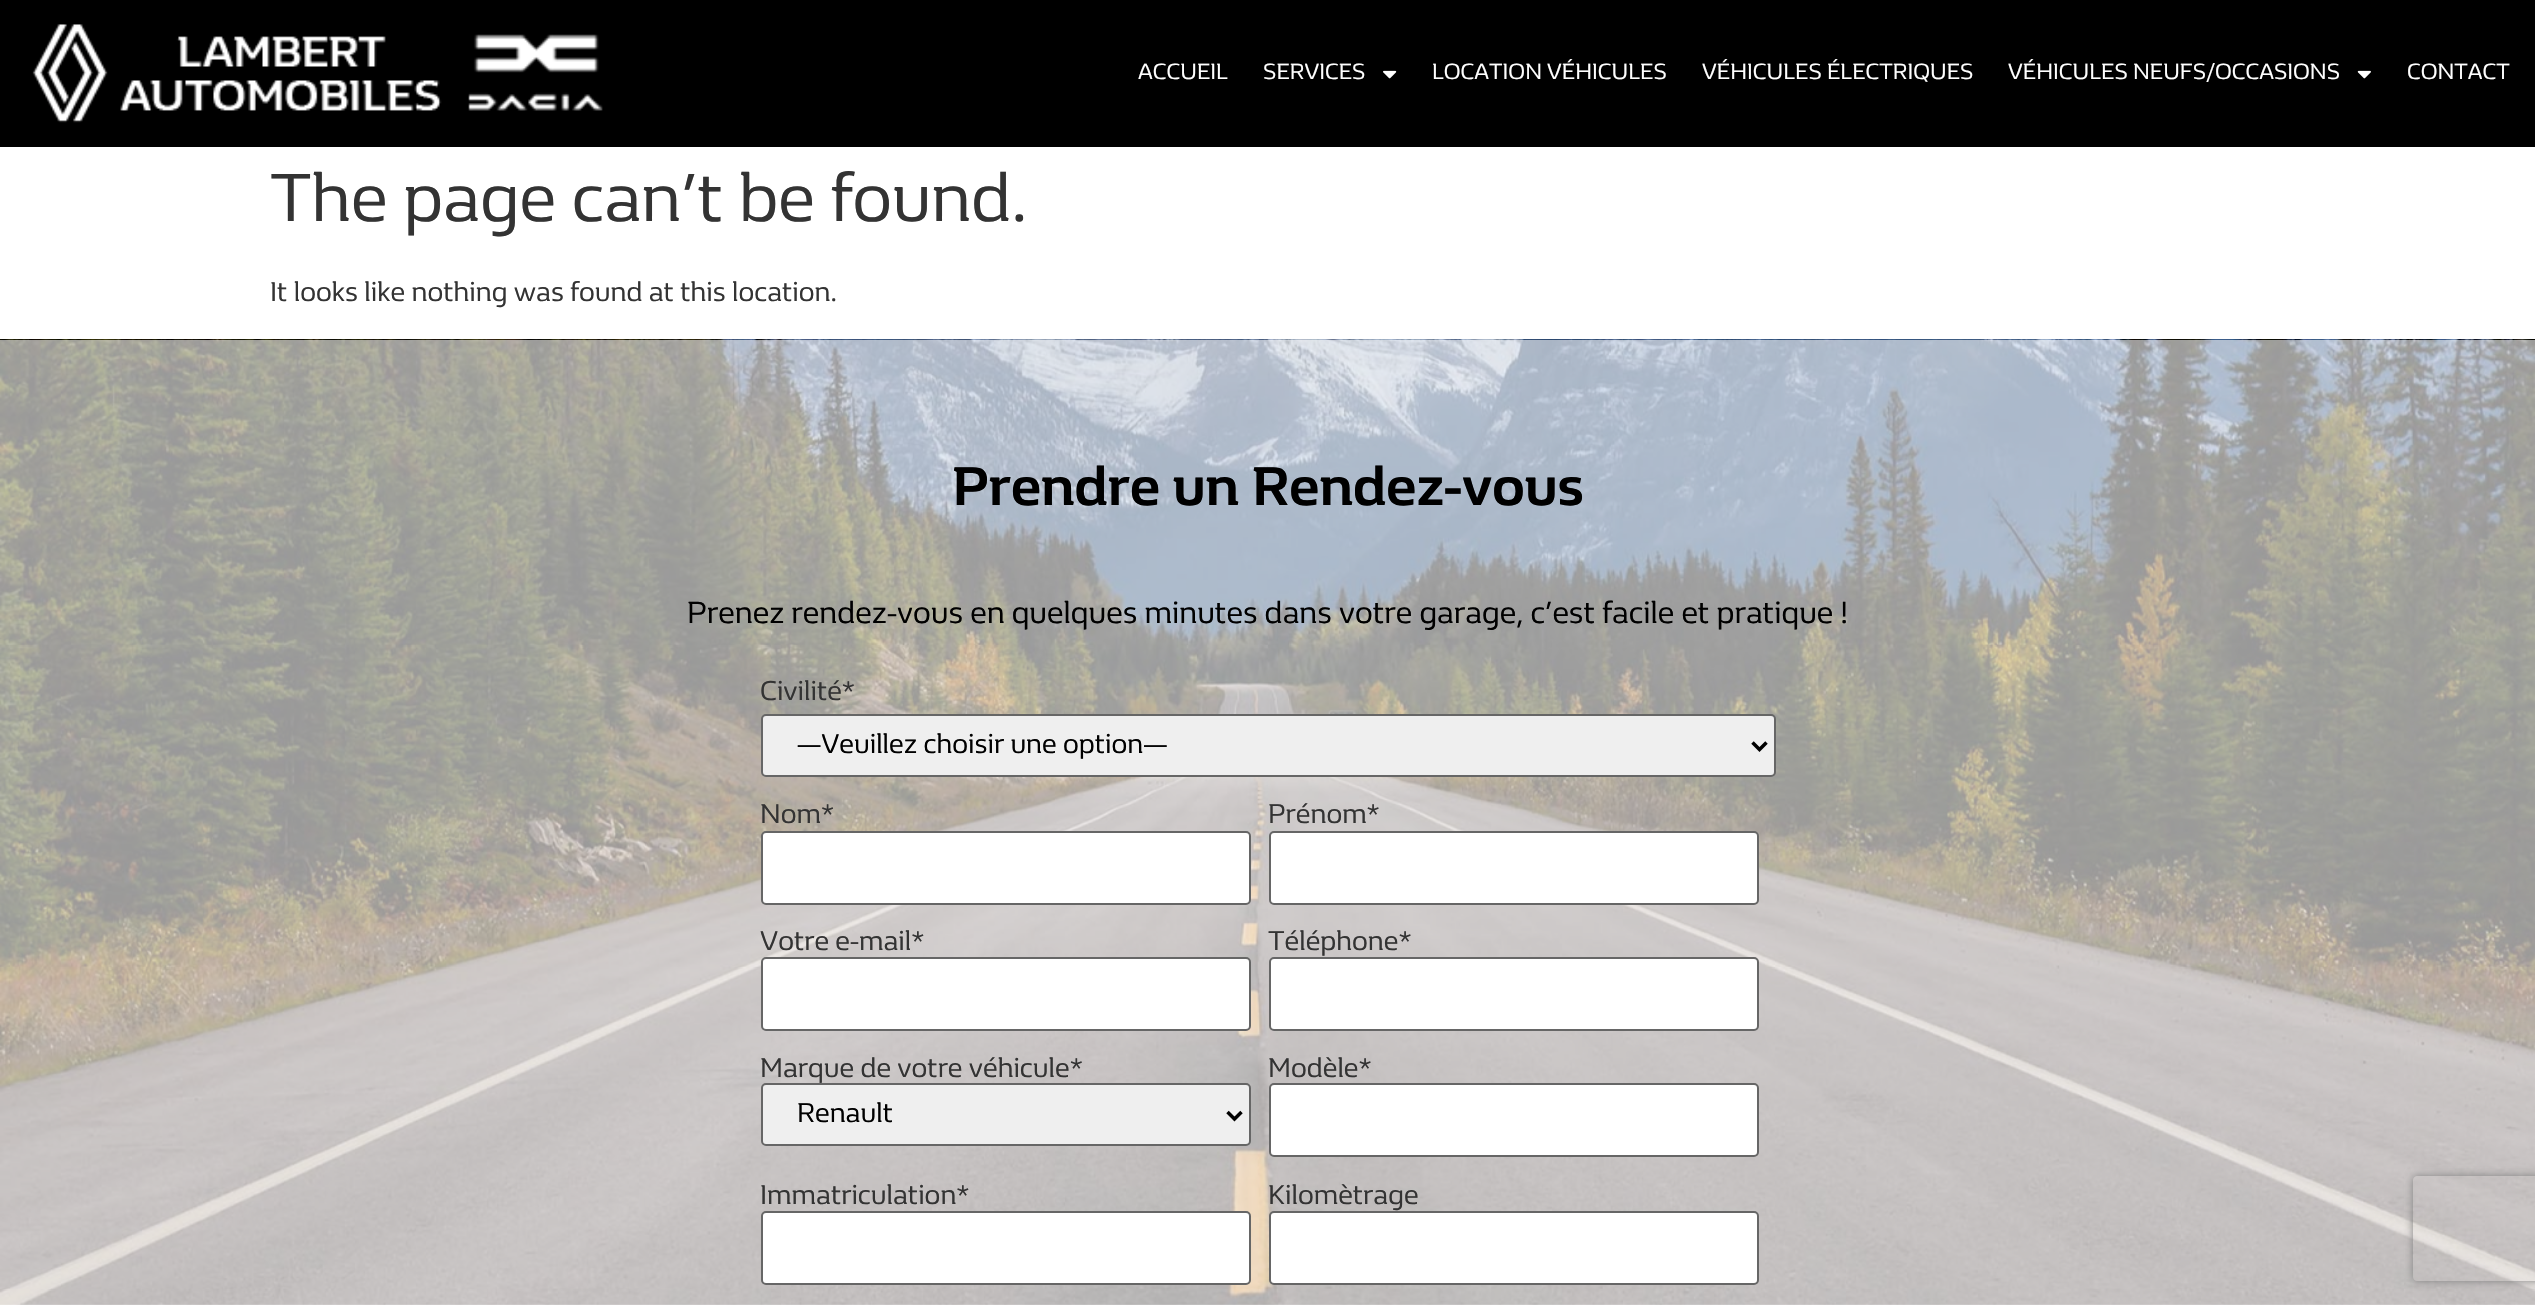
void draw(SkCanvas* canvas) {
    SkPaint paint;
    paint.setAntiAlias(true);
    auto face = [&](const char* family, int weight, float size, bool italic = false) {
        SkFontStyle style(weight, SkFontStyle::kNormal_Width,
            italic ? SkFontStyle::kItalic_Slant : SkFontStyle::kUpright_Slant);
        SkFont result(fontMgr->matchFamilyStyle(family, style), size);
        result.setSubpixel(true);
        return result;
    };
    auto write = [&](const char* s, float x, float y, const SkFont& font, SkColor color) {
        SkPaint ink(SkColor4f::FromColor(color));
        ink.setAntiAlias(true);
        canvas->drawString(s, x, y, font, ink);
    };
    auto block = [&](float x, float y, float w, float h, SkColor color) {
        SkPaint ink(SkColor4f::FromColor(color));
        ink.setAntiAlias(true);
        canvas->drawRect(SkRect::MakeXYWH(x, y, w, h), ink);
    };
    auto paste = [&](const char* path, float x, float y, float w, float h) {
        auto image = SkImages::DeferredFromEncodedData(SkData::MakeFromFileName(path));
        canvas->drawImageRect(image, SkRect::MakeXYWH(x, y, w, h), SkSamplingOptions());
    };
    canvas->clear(SK_ColorWHITE);
    block(0, 0, 2535, 147, SK_ColorBLACK);
    paste("pic1.png", 32, 24, 571, 99);
    auto kFont1 = face("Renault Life", 400, 22.75f);
    write("ACCUEIL", 1138, 79, kFont1, SK_ColorWHITE);
    write("SERVICES", 1263, 79, kFont1, SK_ColorWHITE);
    paste("pic2.png", 1383, 70, 14, 9);
    write("LOCATION VÉHICULES", 1432, 79, kFont1, SK_ColorWHITE);
    write("VÉHICULES ÉLECTRIQUES", 1702, 79, kFont1, SK_ColorWHITE);
    write("VÉHICULES NEUFS/OCCASIONS", 2008, 79, kFont1, SK_ColorWHITE);
    paste("pic3.png", 2357, 70, 14, 9);
    write("CONTACT", 2407, 79, kFont1, SK_ColorWHITE);
    auto kFont2 = face("Renault Life", 400, 70);
    write("The page can’t be found.", 270, 221, kFont2, SkColorSetRGB(51, 51, 51));
    auto kFont3 = face("Renault Life", 400, 28);
    write("It looks like nothing was found at this location.", 270, 301, kFont3, SkColorSetRGB(51, 51, 51));
    paste("pic4.png", 0, 339, 2535, 966);
    auto kFont4 = face("Renault Life", 700, 56);
    write("Prendre un Rendez-vous", 952, 505, kFont4, SK_ColorBLACK);
    auto kFont5 = face("Renault Life", 400, 31.5f);
    write("Prenez rendez-vous en quelques minutes dans votre garage, c’est facile et pratique !", 687, 623, kFont5, SK_ColorBLACK);
    write("Civilité*", 760, 700, kFont3, SkColorSetRGB(51, 51, 51));
    paint.setColor(SkColorSetRGB(239, 239, 239));
    canvas->drawRoundRect(SkRect::MakeXYWH(762, 715, 1013, 61), 4, 4, paint);
    paint.setStyle(SkPaint::kStroke_Style);
    paint.setStrokeWidth(2);
    paint.setColor(SkColorSetRGB(102, 102, 102));
    canvas->drawRoundRect(SkRect::MakeXYWH(762, 715, 1013, 61), 4, 4, paint);
    paint.setStrokeWidth(3.5f);
    paint.setColor(SK_ColorBLACK);
    canvas->drawPath(SkPathBuilder().moveTo(1752.5f, 742.5f).lineTo(1759.5f, 749.5f).lineTo(1766.5f, 742.5f).detach(), paint);
    write("—Veuillez choisir une option—", 797, 753, kFont3, SK_ColorBLACK);
    write("Nom*", 760, 823, kFont3, SkColorSetRGB(51, 51, 51));
    paint.setStyle(SkPaint::kFill_Style);
    paint.setColor(SK_ColorWHITE);
    canvas->drawRoundRect(SkRect::MakeXYWH(762, 832, 488, 72), 4, 4, paint);
    paint.setStyle(SkPaint::kStroke_Style);
    paint.setStrokeWidth(2);
    paint.setColor(SkColorSetRGB(102, 102, 102));
    canvas->drawRoundRect(SkRect::MakeXYWH(762, 832, 488, 72), 4, 4, paint);
    write("Prénom*", 1268, 823, kFont3, SkColorSetRGB(51, 51, 51));
    paint.setStyle(SkPaint::kFill_Style);
    paint.setColor(SK_ColorWHITE);
    canvas->drawRoundRect(SkRect::MakeXYWH(1270, 832, 488, 72), 4, 4, paint);
    paint.setStyle(SkPaint::kStroke_Style);
    paint.setColor(SkColorSetRGB(102, 102, 102));
    canvas->drawRoundRect(SkRect::MakeXYWH(1270, 832, 488, 72), 4, 4, paint);
    write("Votre e-mail*", 760, 950, kFont3, SkColorSetRGB(51, 51, 51));
    paint.setStyle(SkPaint::kFill_Style);
    paint.setColor(SK_ColorWHITE);
    canvas->drawRoundRect(SkRect::MakeXYWH(762, 958, 488, 72), 4, 4, paint);
    paint.setStyle(SkPaint::kStroke_Style);
    paint.setColor(SkColorSetRGB(102, 102, 102));
    canvas->drawRoundRect(SkRect::MakeXYWH(762, 958, 488, 72), 4, 4, paint);
    write("Téléphone*", 1268, 950, kFont3, SkColorSetRGB(51, 51, 51));
    paint.setStyle(SkPaint::kFill_Style);
    paint.setColor(SK_ColorWHITE);
    canvas->drawRoundRect(SkRect::MakeXYWH(1270, 958, 488, 72), 4, 4, paint);
    paint.setStyle(SkPaint::kStroke_Style);
    paint.setColor(SkColorSetRGB(102, 102, 102));
    canvas->drawRoundRect(SkRect::MakeXYWH(1270, 958, 488, 72), 4, 4, paint);
    write("Marque de votre véhicule*", 760, 1077, kFont3, SkColorSetRGB(51, 51, 51));
    paint.setStyle(SkPaint::kFill_Style);
    paint.setColor(SkColorSetRGB(239, 239, 239));
    canvas->drawRoundRect(SkRect::MakeXYWH(762, 1084, 488, 61), 4, 4, paint);
    paint.setStyle(SkPaint::kStroke_Style);
    paint.setColor(SkColorSetRGB(102, 102, 102));
    canvas->drawRoundRect(SkRect::MakeXYWH(762, 1084, 488, 61), 4, 4, paint);
    paint.setStrokeWidth(3.5f);
    paint.setColor(SK_ColorBLACK);
    canvas->drawPath(SkPathBuilder().moveTo(1227.5f, 1112).lineTo(1234.5f, 1119).lineTo(1241.5f, 1112).detach(), paint);
    write("Renault", 797, 1122, kFont3, SK_ColorBLACK);
    write("Modèle*", 1268, 1077, kFont3, SkColorSetRGB(51, 51, 51));
    paint.setStyle(SkPaint::kFill_Style);
    paint.setColor(SK_ColorWHITE);
    canvas->drawRoundRect(SkRect::MakeXYWH(1270, 1084, 488, 72), 4, 4, paint);
    paint.setStyle(SkPaint::kStroke_Style);
    paint.setStrokeWidth(2);
    paint.setColor(SkColorSetRGB(102, 102, 102));
    canvas->drawRoundRect(SkRect::MakeXYWH(1270, 1084, 488, 72), 4, 4, paint);
    write("Immatriculation*", 760, 1204, kFont3, SkColorSetRGB(51, 51, 51));
    paint.setStyle(SkPaint::kFill_Style);
    paint.setColor(SK_ColorWHITE);
    canvas->drawRoundRect(SkRect::MakeXYWH(762, 1212, 488, 72), 4, 4, paint);
    paint.setStyle(SkPaint::kStroke_Style);
    paint.setColor(SkColorSetRGB(102, 102, 102));
    canvas->drawRoundRect(SkRect::MakeXYWH(762, 1212, 488, 72), 4, 4, paint);
    write("Kilomètrage", 1268, 1204, kFont3, SkColorSetRGB(51, 51, 51));
    paint.setStyle(SkPaint::kFill_Style);
    paint.setColor(SK_ColorWHITE);
    canvas->drawRoundRect(SkRect::MakeXYWH(1270, 1212, 488, 72), 4, 4, paint);
    paint.setStyle(SkPaint::kStroke_Style);
    paint.setColor(SkColorSetRGB(102, 102, 102));
    canvas->drawRoundRect(SkRect::MakeXYWH(1270, 1212, 488, 72), 4, 4, paint);
    canvas->save();
    canvas->clipPath(SkPathBuilder(SkPathFillType::kEvenOdd).moveTo(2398, 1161).lineTo(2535, 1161).lineTo(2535, 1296).lineTo(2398, 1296).close().moveTo(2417, 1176).lineTo(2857, 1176).cubicTo(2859, 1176, 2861, 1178, 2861, 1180).lineTo(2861, 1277).cubicTo(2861, 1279, 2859, 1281, 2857, 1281).lineTo(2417, 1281).cubicTo(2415, 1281, 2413, 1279, 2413, 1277).lineTo(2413, 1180).cubicTo(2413, 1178, 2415, 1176, 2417, 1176).close().detach(), true);
    paint.setStyle(SkPaint::kFill_Style);
    paint.setColor(SkColorSetRGB(128, 128, 128));
    paint.setMaskFilter(SkMaskFilter::MakeBlur(kNormal_SkBlurStyle, 4.5f));
    canvas->drawRoundRect(SkRect::MakeXYWH(2413, 1176, 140, 105), 4, 4, paint);
    paint.setMaskFilter(nullptr);
    canvas->restore();
}
